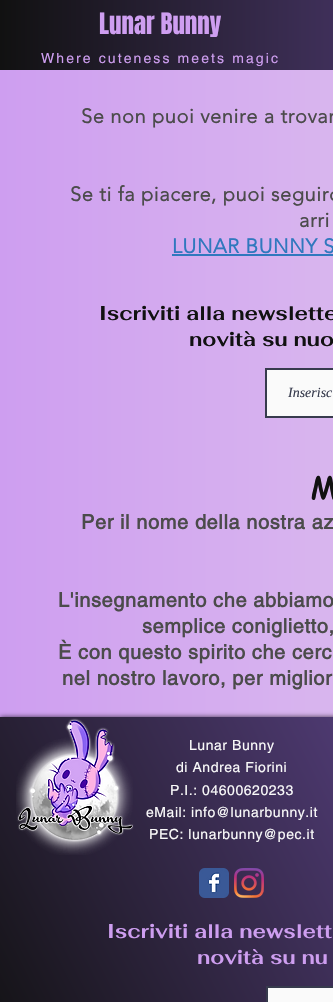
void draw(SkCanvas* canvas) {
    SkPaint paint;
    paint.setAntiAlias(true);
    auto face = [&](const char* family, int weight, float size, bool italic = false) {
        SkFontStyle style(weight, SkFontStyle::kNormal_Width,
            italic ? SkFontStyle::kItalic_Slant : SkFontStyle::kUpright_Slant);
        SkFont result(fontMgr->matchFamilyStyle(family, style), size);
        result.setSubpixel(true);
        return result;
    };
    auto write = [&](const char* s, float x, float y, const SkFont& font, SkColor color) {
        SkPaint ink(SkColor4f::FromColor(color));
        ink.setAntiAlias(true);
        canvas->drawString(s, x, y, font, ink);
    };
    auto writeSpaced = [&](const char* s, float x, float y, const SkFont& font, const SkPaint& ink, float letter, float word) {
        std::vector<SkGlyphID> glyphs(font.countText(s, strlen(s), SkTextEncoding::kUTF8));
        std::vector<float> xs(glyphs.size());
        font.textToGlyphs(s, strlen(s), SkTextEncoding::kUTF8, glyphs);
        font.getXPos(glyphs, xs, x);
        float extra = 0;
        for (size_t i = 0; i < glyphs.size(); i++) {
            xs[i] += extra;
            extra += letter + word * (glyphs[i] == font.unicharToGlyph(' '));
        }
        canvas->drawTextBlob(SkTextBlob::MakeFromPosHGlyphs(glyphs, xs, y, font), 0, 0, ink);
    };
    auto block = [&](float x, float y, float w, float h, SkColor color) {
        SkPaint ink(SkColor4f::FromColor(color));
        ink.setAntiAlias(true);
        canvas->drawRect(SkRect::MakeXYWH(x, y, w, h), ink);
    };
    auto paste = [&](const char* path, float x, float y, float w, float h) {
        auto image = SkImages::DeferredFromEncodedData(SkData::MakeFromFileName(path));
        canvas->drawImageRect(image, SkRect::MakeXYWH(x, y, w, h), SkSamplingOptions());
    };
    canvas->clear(SK_ColorWHITE);
    {
        const SkColor colors[] = {SkColorSetRGB(17, 17, 17), SkColorSetRGB(152, 107, 230)};
        const float stops[] = {0, 1};
        const SkPoint ends[] = {{0, 35}, {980, 35}};
        paint.setShader(SkGradientShader::MakeLinear(ends, colors, stops, 2, SkTileMode::kClamp));
        paint.setAlpha(255);
    }
    canvas->drawRect(SkRect::MakeXYWH(0, 0, 333, 70), paint);
    auto kFont1 = face("Anton", 400, 25);
    write("Lunar Bunny", 99, 34, kFont1, SkColorSetRGB(206, 158, 240));
    auto kFont2 = face("helvetica", 400, 14);
    paint.setShader(nullptr);
    paint.setColor(SkColorSetRGB(206, 158, 240));
    writeSpaced("Where cuteness meets magic", 41, 63, kFont2, paint, 2.1f, 0);
    {
        const SkColor colors[] = {SkColorSetRGB(206, 158, 240), SkColorSetRGB(237, 227, 235)};
        const float stops[] = {0, 1};
        const SkPoint ends[] = {{0, 118}, {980, 118}};
        paint.setShader(SkGradientShader::MakeLinear(ends, colors, stops, 2, SkTileMode::kClamp));
        paint.setAlpha(255);
    }
    canvas->drawRect(SkRect::MakeXYWH(0, 70, 333, 647), paint);
    auto kFont3 = face("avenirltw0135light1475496", 700, 20);
    paint.setShader(nullptr);
    paint.setColor(SkColorSetRGB(75, 75, 75));
    writeSpaced("Se non puoi venire a trovar", 81, 123, kFont3, paint, 0.6f, 0);
    writeSpaced("Se ti fa piacere, puoi seguirc", 70, 201, kFont3, paint, 0.6f, 0);
    writeSpaced("arri", 299, 227, kFont3, paint, 0.6f, 0);
    paint.setColor(SkColorSetRGB(48, 120, 190));
    writeSpaced("LUNAR BUNNY S", 172, 253, kFont3, paint, 0.6f, 0);
    block(172, 254, 161, 2, SkColorSetRGB(48, 120, 190));
    auto kFont4 = face("Fahkwang", 700, 20);
    write("Iscriviti alla newslette", 99, 320, kFont4, SkColorSetRGB(17, 17, 17));
    write("novità su nuo", 189, 346, kFont4, SkColorSetRGB(17, 17, 17));
    paint.setColor(SkColorSetRGB(250, 250, 250));
    canvas->drawRect(SkRect::MakeXYWH(266, 369, 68, 48), paint);
    paint.setStyle(SkPaint::kStroke_Style);
    paint.setStrokeWidth(2);
    paint.setColor(SkColorSetRGB(55, 59, 77));
    canvas->drawRect(SkRect::MakeXYWH(266, 369, 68, 48), paint);
    auto kFont5 = face("Liberation Serif", 400, 14, true);
    write("Inserisc", 288, 397, kFont5, SkColorSetRGB(55, 59, 77));
    auto kFont6 = face("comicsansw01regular", 700, 30);
    write("M", 310, 499, kFont6, SkColorSetRGB(17, 17, 17));
    auto kFont7 = face("helvetica", 700, 20);
    paint.setStyle(SkPaint::kFill_Style);
    paint.setColor(SkColorSetRGB(75, 75, 75));
    writeSpaced("Per il nome della nostra az", 81, 529, kFont7, paint, 0.6f, 0);
    writeSpaced("L'insegnamento che abbiamo", 58, 607, kFont7, paint, 0.6f, 0);
    writeSpaced("semplice coniglietto,", 142, 633, kFont7, paint, 0.6f, 0);
    writeSpaced("È con questo spirito che cerc", 58, 659, kFont7, paint, 0.6f, 0);
    writeSpaced("nel nostro lavoro, per miglior", 62, 685, kFont7, paint, 0.6f, 0);
    paint.setColor(SkColorSetARGB(179, 0, 0, 0));
    paint.setMaskFilter(SkMaskFilter::MakeBlur(kNormal_SkBlurStyle, 2.5f));
    canvas->drawRect(SkRect::MakeXYWH(0, 717, 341, 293), paint);
    paint.setMaskFilter(nullptr);
    {
        const SkColor colors[] = {SkColorSetRGB(152, 107, 230), SkColorSetRGB(17, 17, 17)};
        const float stops[] = {0, 1};
        const SkPoint ends[] = {{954, 666}, {26, 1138}};
        paint.setShader(SkGradientShader::MakeLinear(ends, colors, stops, 2, SkTileMode::kClamp));
        paint.setAlpha(255);
    }
    canvas->drawRect(SkRect::MakeXYWH(0, 717, 333, 285), paint);
    paste("pic1.png", 16, 718, 118, 137);
    paint.setShader(nullptr);
    paint.setColor(SkColorSetRGB(250, 250, 250));
    writeSpaced("Lunar Bunny", 189, 750, kFont2, paint, 0.55f, 0);
    writeSpaced("di Andrea Fiorini", 176, 772, kFont2, paint, 0.55f, 0);
    writeSpaced("P.I.: 04600620233", 170, 795, kFont2, paint, 0.55f, 0);
    writeSpaced("eMail: info@lunarbunny.it", 146, 817, kFont2, paint, 0.55f, 0);
    writeSpaced("PEC: lunarbunny@pec.it", 149, 839, kFont2, paint, 0.55f, 0);
    paste("pic2.png", 199, 868, 30, 30);
    paste("pic3.png", 234, 868, 30, 30);
    write("Iscriviti alla newslett", 107, 938, kFont4, SkColorSetRGB(206, 158, 240));
    write("novità su nu", 197, 964, kFont4, SkColorSetRGB(206, 158, 240));
    canvas->drawRect(SkRect::MakeXYWH(267, 987, 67, 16), paint);
    paint.setStyle(SkPaint::kStroke_Style);
    paint.setColor(SkColorSetRGB(55, 59, 77));
    canvas->drawRect(SkRect::MakeXYWH(267, 987, 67, 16), paint);
}
